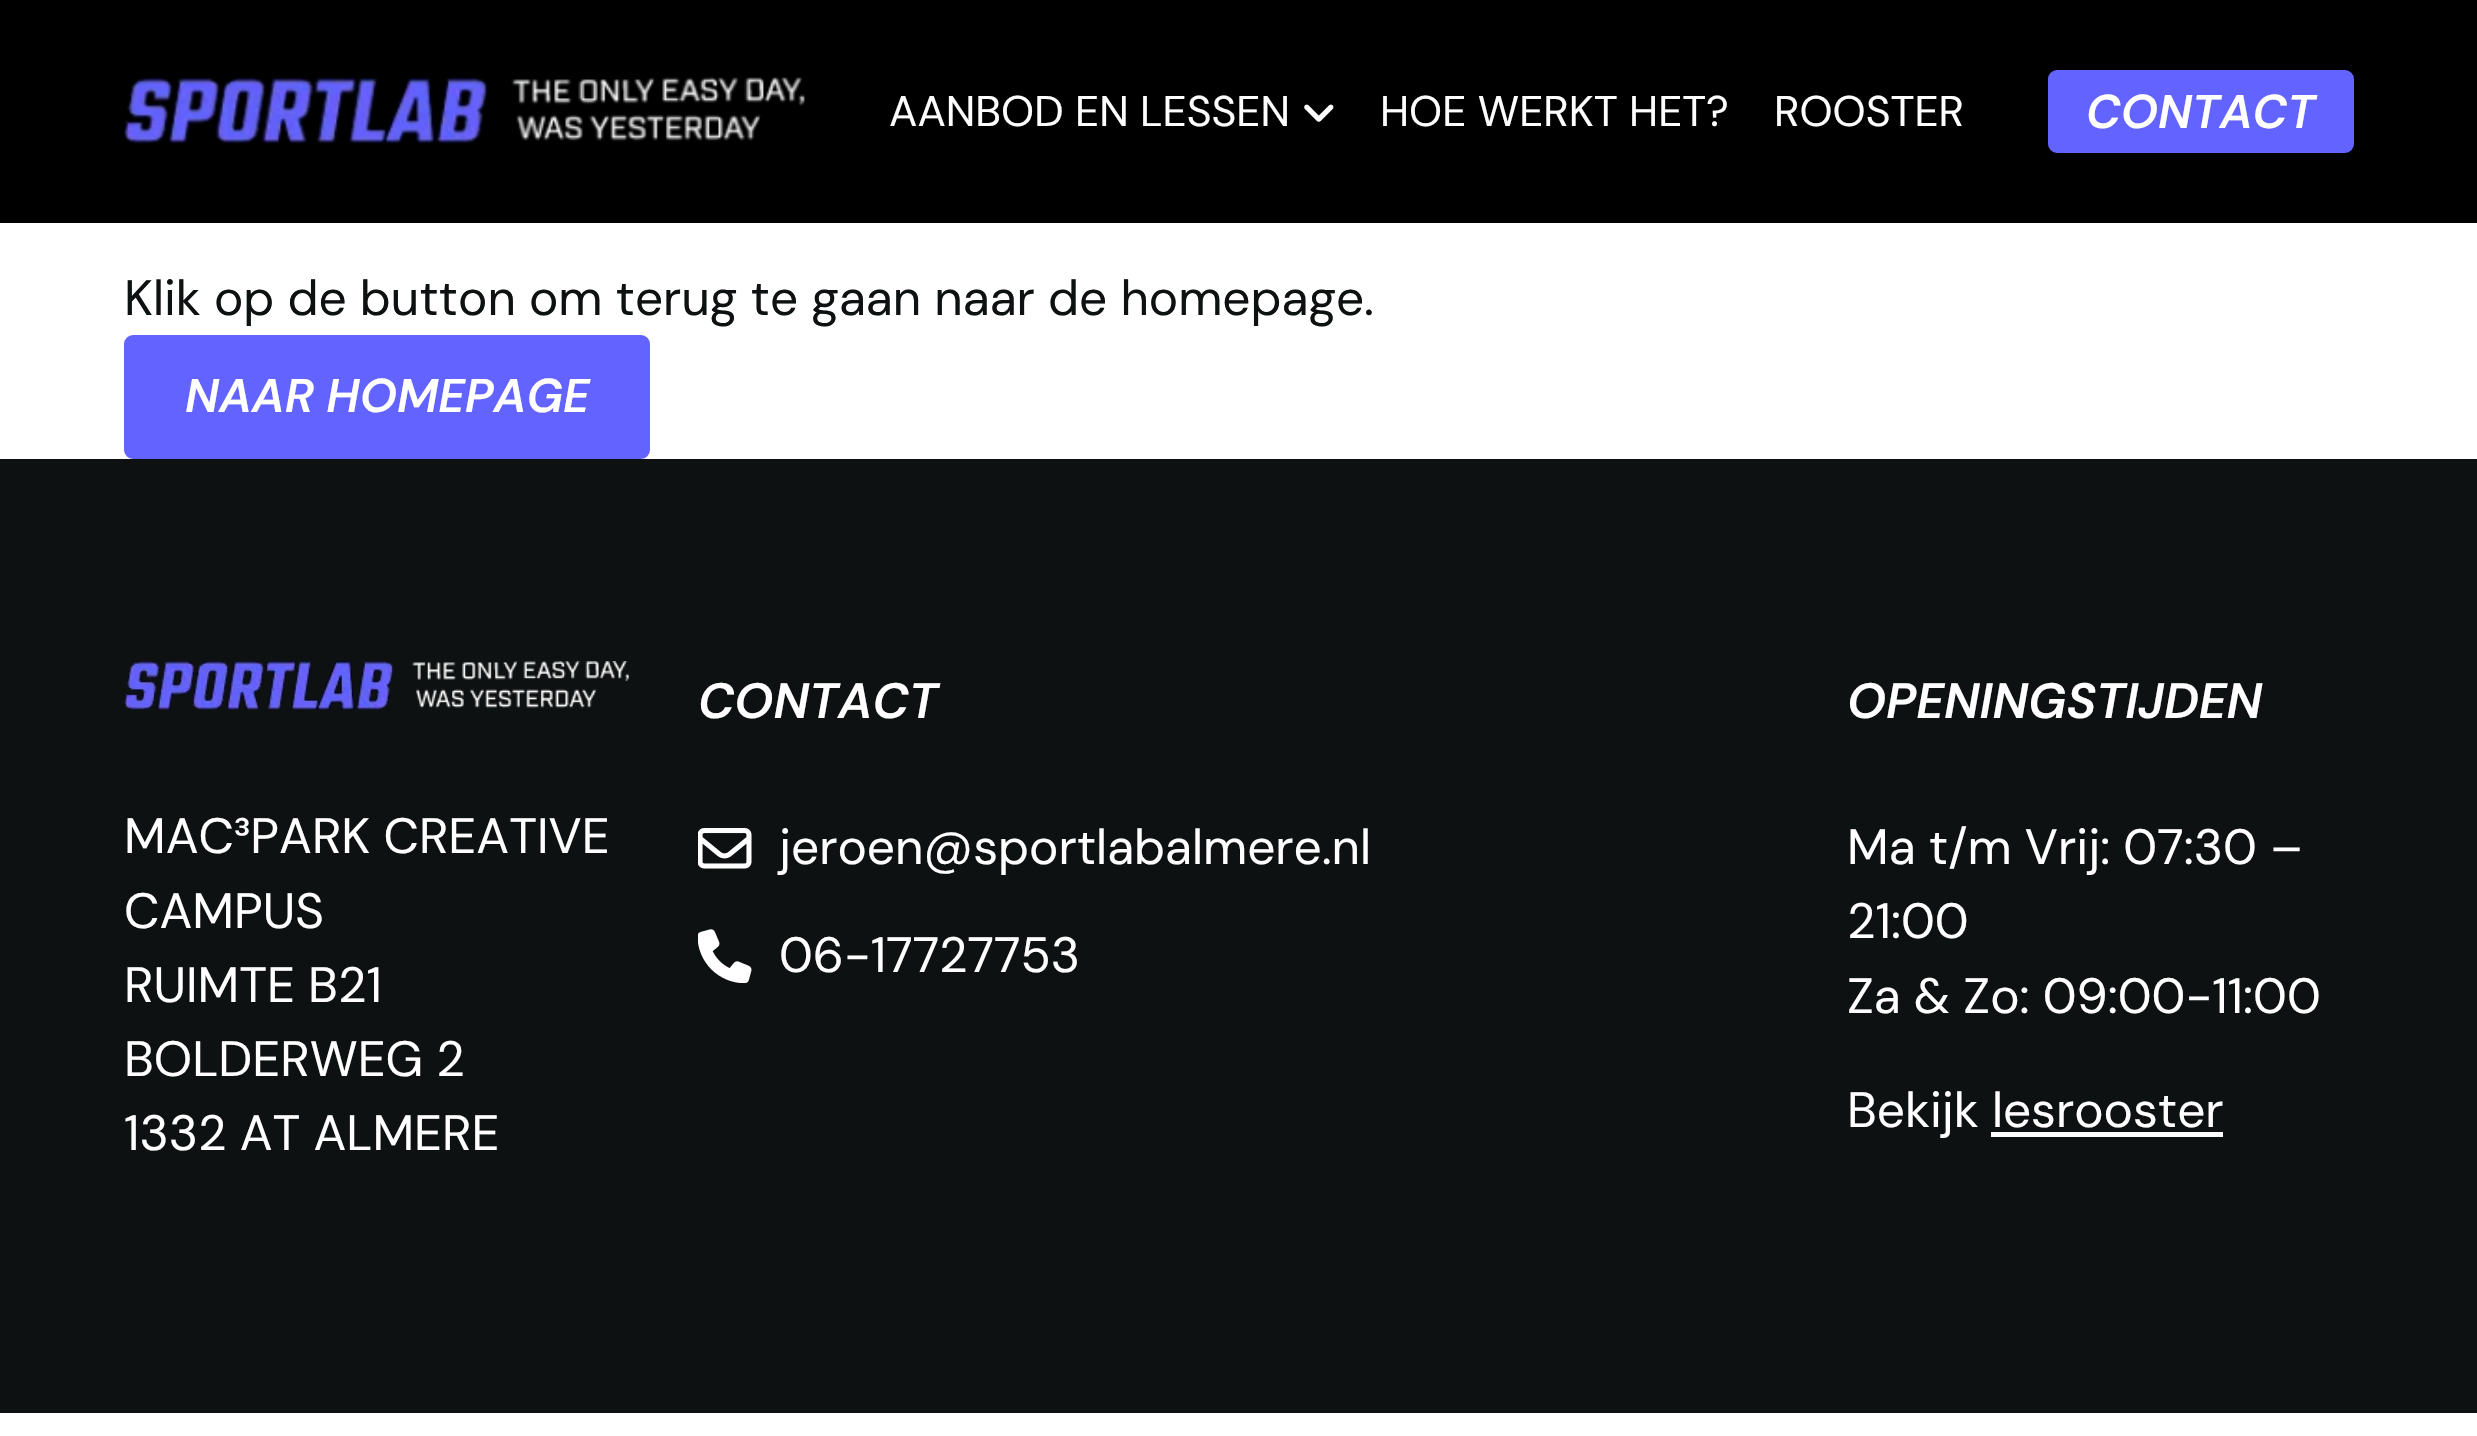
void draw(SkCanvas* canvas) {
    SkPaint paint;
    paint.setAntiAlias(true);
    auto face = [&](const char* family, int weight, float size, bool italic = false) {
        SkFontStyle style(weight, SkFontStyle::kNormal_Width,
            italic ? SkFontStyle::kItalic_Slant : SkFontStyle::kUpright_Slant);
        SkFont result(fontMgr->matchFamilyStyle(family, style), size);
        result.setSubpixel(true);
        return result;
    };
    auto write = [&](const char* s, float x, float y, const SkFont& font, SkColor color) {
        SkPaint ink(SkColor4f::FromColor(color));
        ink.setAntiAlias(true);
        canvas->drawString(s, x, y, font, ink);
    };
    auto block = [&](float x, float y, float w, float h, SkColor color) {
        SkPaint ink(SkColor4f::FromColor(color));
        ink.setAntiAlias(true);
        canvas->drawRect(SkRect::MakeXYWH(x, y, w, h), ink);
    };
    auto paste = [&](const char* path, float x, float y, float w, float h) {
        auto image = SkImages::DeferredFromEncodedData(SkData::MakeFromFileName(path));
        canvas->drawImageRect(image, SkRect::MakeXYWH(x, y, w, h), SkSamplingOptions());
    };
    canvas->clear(SK_ColorWHITE);
    block(0, 0, 2477, 223, SK_ColorBLACK);
    paste("pic1.png", 123, 77, 682, 67);
    auto kFont1 = face("DM Sans", 400, 42.75f);
    write("AANBOD EN LESSEN", 889, 126, kFont1, SK_ColorWHITE);
    paste("pic2.png", 1304, 104, 30, 18);
    write("HOE WERKT HET?", 1380, 126, kFont1, SK_ColorWHITE);
    write("ROOSTER", 1774, 126, kFont1, SK_ColorWHITE);
    paint.setColor(SkColorSetRGB(99, 99, 255));
    canvas->drawRoundRect(SkRect::MakeXYWH(2049, 71, 304, 81), 8, 8, paint);
    paint.setStyle(SkPaint::kStroke_Style);
    paint.setStrokeWidth(2);
    canvas->drawRoundRect(SkRect::MakeXYWH(2049, 71, 304, 81), 8, 8, paint);
    auto kFont2 = face("DM Sans", 600, 47.25f, true);
    write("CONTACT", 2086, 128, kFont2, SK_ColorWHITE);
    auto kFont3 = face("DM Sans", 400, 49.5f);
    write("Klik op de button om terug te gaan naar de homepage.", 124, 315, kFont3, SkColorSetRGB(14, 17, 17));
    paint.setStyle(SkPaint::kFill_Style);
    canvas->drawRoundRect(SkRect::MakeXYWH(125, 336, 524, 122), 8, 8, paint);
    paint.setStyle(SkPaint::kStroke_Style);
    canvas->drawRoundRect(SkRect::MakeXYWH(125, 336, 524, 122), 8, 8, paint);
    write("NAAR HOMEPAGE", 185, 412, kFont2, SK_ColorWHITE);
    block(0, 459, 2477, 954, SkColorSetRGB(14, 17, 17));
    paste("pic3.png", 123, 661, 507, 49);
    write("MAC³PARK CREATIVE", 124, 853, kFont3, SK_ColorWHITE);
    write("CAMPUS", 124, 928, kFont3, SK_ColorWHITE);
    write("RUIMTE B21", 124, 1002, kFont3, SK_ColorWHITE);
    write("BOLDERWEG 2", 124, 1076, kFont3, SK_ColorWHITE);
    write("1332 AT ALMERE", 124, 1150, kFont3, SK_ColorWHITE);
    auto kFont4 = face("DM Sans", 600, 49.5f, true);
    write("CONTACT", 698, 718, kFont4, SK_ColorWHITE);
    paste("pic4.png", 698, 828, 54, 41);
    write("jeroen@sportlabalmere.nl", 779, 864, kFont3, SK_ColorWHITE);
    paste("pic5.png", 698, 929, 54, 54);
    write("06-17727753", 779, 972, kFont3, SK_ColorWHITE);
    write("OPENINGSTIJDEN", 1847, 718, kFont4, SK_ColorWHITE);
    write("Ma t/m Vrij: 07:30 –", 1847, 864, kFont3, SK_ColorWHITE);
    write("21:00", 1847, 938, kFont3, SK_ColorWHITE);
    write("Za & Zo: 09:00-11:00", 1847, 1013, kFont3, SK_ColorWHITE);
    write("Bekijk lesrooster", 1847, 1127, kFont3, SK_ColorWHITE);
    block(1991, 1132, 232, 5, SK_ColorWHITE);
}
